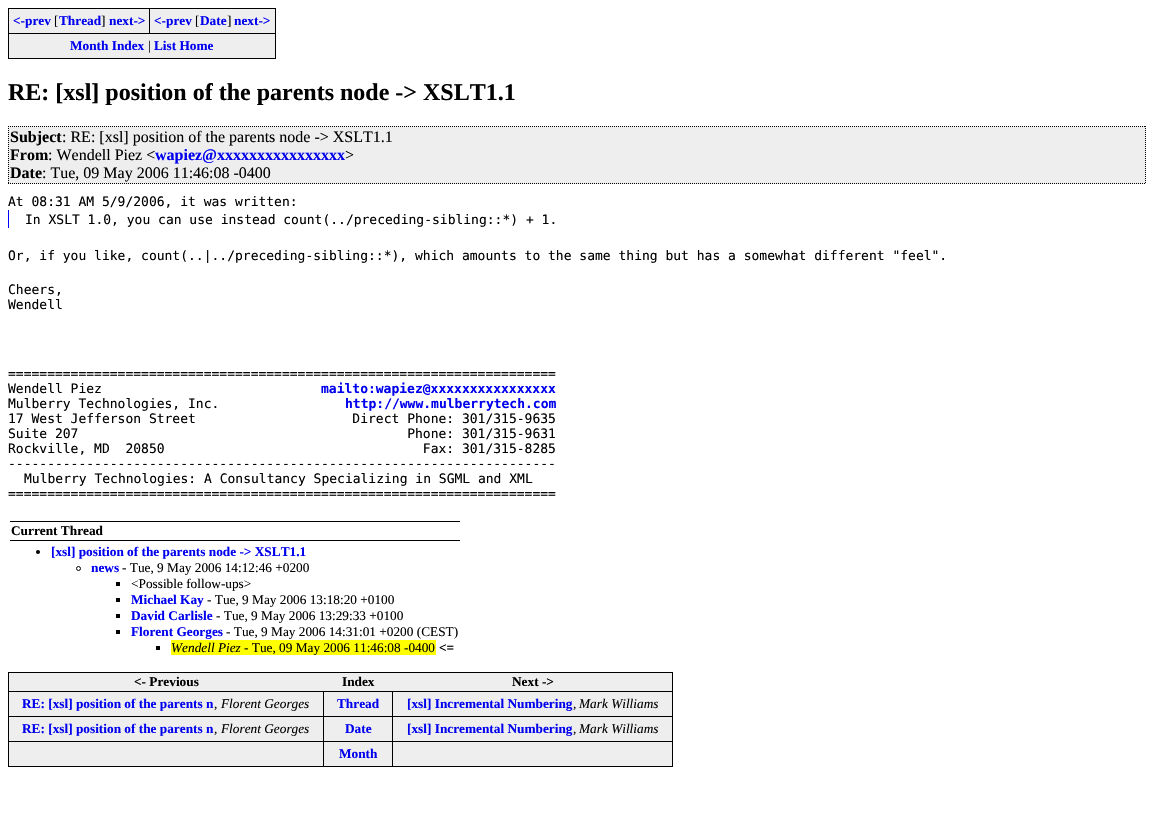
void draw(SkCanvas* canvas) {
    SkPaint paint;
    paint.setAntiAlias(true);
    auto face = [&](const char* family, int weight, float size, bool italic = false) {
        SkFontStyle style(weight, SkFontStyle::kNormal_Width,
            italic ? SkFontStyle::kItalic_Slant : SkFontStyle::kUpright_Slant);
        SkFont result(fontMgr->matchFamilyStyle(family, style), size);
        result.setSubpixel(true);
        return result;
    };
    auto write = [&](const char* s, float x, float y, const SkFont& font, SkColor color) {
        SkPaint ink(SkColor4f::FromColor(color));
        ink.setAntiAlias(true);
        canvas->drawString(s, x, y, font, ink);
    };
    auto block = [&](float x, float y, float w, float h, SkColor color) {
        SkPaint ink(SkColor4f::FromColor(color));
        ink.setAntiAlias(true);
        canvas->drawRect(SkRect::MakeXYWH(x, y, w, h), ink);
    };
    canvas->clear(SK_ColorWHITE);
    block(9, 9, 266, 49, SkColorSetRGB(238, 238, 238));
    block(8, 8, 268, 1, SK_ColorBLACK);
    block(275, 8, 1, 51, SK_ColorBLACK);
    block(8, 58, 268, 1, SK_ColorBLACK);
    block(8, 8, 1, 51, SK_ColorBLACK);
    auto kFont1 = face("Liberation Serif", 700, 13.3f);
    write("<-prev", 13, 25, kFont1, SkColorSetRGB(0, 0, 238));
    auto kFont2 = face("Liberation Serif", 400, 13.3f);
    write("[", 54, 25, kFont2, SK_ColorBLACK);
    write("Thread", 59, 25, kFont1, SkColorSetRGB(0, 0, 238));
    write("]", 101, 25, kFont2, SK_ColorBLACK);
    write("next->", 109, 25, kFont1, SkColorSetRGB(0, 0, 238));
    block(8, 33, 268, 1, SK_ColorBLACK);
    block(149, 8, 1, 26, SK_ColorBLACK);
    write("<-prev", 154, 25, kFont1, SkColorSetRGB(0, 0, 238));
    write("[", 195, 25, kFont2, SK_ColorBLACK);
    write("Date", 200, 25, kFont1, SkColorSetRGB(0, 0, 238));
    write("]", 227, 25, kFont2, SK_ColorBLACK);
    write("next->", 234, 25, kFont1, SkColorSetRGB(0, 0, 238));
    write("Month Index", 70, 50, kFont1, SkColorSetRGB(0, 0, 238));
    write("|", 148, 50, kFont2, SK_ColorBLACK);
    write("List Home", 154, 50, kFont1, SkColorSetRGB(0, 0, 238));
    auto kFont3 = face("Liberation Serif", 700, 24);
    write("RE: [xsl] position of the parents node -> XSLT1.1", 8, 100, kFont3, SK_ColorBLACK);
    block(8, 126, 1138, 58, SkColorSetRGB(238, 238, 238));
    paint.setStyle(SkPaint::kStroke_Style);
    paint.setStrokeWidth(1);
    paint.setColor(SK_ColorBLACK);
    paint.setPathEffect(SkDashPathEffect::Make({{1, 1}}, 0));
    canvas->drawPath(SkPathBuilder().moveTo(8, 126.5f).lineTo(1146, 126.5f).detach(), paint);
    paint.setPathEffect(nullptr);
    paint.setPathEffect(SkDashPathEffect::Make({{1, 1}}, 0));
    canvas->drawPath(SkPathBuilder().moveTo(1145.5f, 126).lineTo(1145.5f, 184).detach(), paint);
    paint.setPathEffect(nullptr);
    paint.setPathEffect(SkDashPathEffect::Make({{1, 1}}, 0));
    canvas->drawPath(SkPathBuilder().moveTo(8, 183.5f).lineTo(1146, 183.5f).detach(), paint);
    paint.setPathEffect(nullptr);
    paint.setPathEffect(SkDashPathEffect::Make({{1, 1}}, 0));
    canvas->drawPath(SkPathBuilder().moveTo(8.5f, 126).lineTo(8.5f, 184).detach(), paint);
    paint.setPathEffect(nullptr);
    auto kFont4 = face("Liberation Serif", 700, 16);
    write("Subject", 10, 142, kFont4, SK_ColorBLACK);
    auto kFont5 = face("Liberation Serif", 400, 16);
    write(": RE: [xsl] position of the parents node -> XSLT1.1", 62, 142, kFont5, SK_ColorBLACK);
    write("From", 10, 160, kFont4, SK_ColorBLACK);
    write(": Wendell Piez <", 48, 160, kFont5, SK_ColorBLACK);
    write("wapiez@xxxxxxxxxxxxxxxx", 155, 160, kFont4, SkColorSetRGB(0, 0, 238));
    write(">", 345, 160, kFont5, SK_ColorBLACK);
    write("Date", 10, 178, kFont4, SK_ColorBLACK);
    write(": Tue, 09 May 2006 11:46:08 -0400", 42, 178, kFont5, SK_ColorBLACK);
    auto kFont6 = face("DejaVu Sans Mono", 400, 13);
    write("At 08:31 AM 5/9/2006, it was written:", 8, 206, kFont6, SK_ColorBLACK);
    block(8, 210, 1, 18, SkColorSetRGB(0, 0, 255));
    write("In XSLT 1.0, you can use instead count(../preceding-sibling::*) + 1.", 25, 224, kFont6, SK_ColorBLACK);
    write("Or, if you like, count(..|../preceding-sibling::*), which amounts to the same thing but has a somewhat different \"feel\".", 8, 260, kFont6, SK_ColorBLACK);
    write("Cheers,", 8, 294, kFont6, SK_ColorBLACK);
    write("Wendell", 8, 309, kFont6, SK_ColorBLACK);
    write("======================================================================", 8, 378, kFont6, SK_ColorBLACK);
    write("Wendell Piez", 8, 393, kFont6, SK_ColorBLACK);
    auto kFont7 = face("DejaVu Sans Mono", 700, 13);
    write("mailto:wapiez@xxxxxxxxxxxxxxxx", 321, 393, kFont7, SkColorSetRGB(0, 0, 238));
    write("Mulberry Technologies, Inc.", 8, 408, kFont6, SK_ColorBLACK);
    write("http://www.mulberrytech.com", 345, 408, kFont7, SkColorSetRGB(0, 0, 238));
    write("17 West Jefferson Street                    Direct Phone: 301/315-9635", 8, 423, kFont6, SK_ColorBLACK);
    write("Suite 207                                          Phone: 301/315-9631", 8, 438, kFont6, SK_ColorBLACK);
    write("Rockville, MD  20850                                 Fax: 301/315-8285", 8, 453, kFont6, SK_ColorBLACK);
    write("----------------------------------------------------------------------", 8, 468, kFont6, SK_ColorBLACK);
    write("Mulberry Technologies: A Consultancy Specializing in SGML and XML", 24, 483, kFont6, SK_ColorBLACK);
    write("======================================================================", 8, 498, kFont6, SK_ColorBLACK);
    block(10, 521, 450, 1, SK_ColorBLACK);
    block(10, 540, 450, 1, SK_ColorBLACK);
    write("Current Thread", 11, 535, kFont1, SK_ColorBLACK);
    paint.setStyle(SkPaint::kFill_Style);
    canvas->drawCircle(38, 552, 2, paint);
    write("[xsl] position of the parents node -> XSLT1.1", 51, 556, kFont1, SkColorSetRGB(0, 0, 238));
    paint.setStyle(SkPaint::kStroke_Style);
    canvas->drawCircle(78.5f, 568.5f, 2, paint);
    write("news", 91, 572, kFont1, SkColorSetRGB(0, 0, 238));
    write("- Tue, 9 May 2006 14:12:46 +0200", 122, 572, kFont2, SK_ColorBLACK);
    block(116, 582, 4, 4, SK_ColorBLACK);
    write("<Possible follow-ups>", 131, 588, kFont2, SK_ColorBLACK);
    block(116, 598, 4, 4, SK_ColorBLACK);
    write("Michael Kay", 131, 604, kFont1, SkColorSetRGB(0, 0, 238));
    write("- Tue, 9 May 2006 13:18:20 +0100", 207, 604, kFont2, SK_ColorBLACK);
    block(116, 614, 4, 4, SK_ColorBLACK);
    write("David Carlisle", 131, 620, kFont1, SkColorSetRGB(0, 0, 238));
    write("- Tue, 9 May 2006 13:29:33 +0100", 216, 620, kFont2, SK_ColorBLACK);
    block(116, 630, 4, 4, SK_ColorBLACK);
    write("Florent Georges", 131, 636, kFont1, SkColorSetRGB(0, 0, 238));
    write("- Tue, 9 May 2006 14:31:01 +0200 (CEST)", 226, 636, kFont2, SK_ColorBLACK);
    block(156, 646, 4, 4, SK_ColorBLACK);
    block(171, 640, 265, 15, SkColorSetRGB(255, 255, 0));
    auto kFont8 = face("Liberation Serif", 400, 13.3f, true);
    write("Wendell Piez", 171, 652, kFont8, SK_ColorBLACK);
    write("- Tue, 09 May 2006 11:46:08 -0400", 244, 652, kFont2, SK_ColorBLACK);
    write("<=", 439, 652, kFont1, SK_ColorBLACK);
    block(9, 673, 663, 93, SkColorSetRGB(238, 238, 238));
    block(8, 672, 665, 1, SK_ColorBLACK);
    block(672, 672, 1, 95, SK_ColorBLACK);
    block(8, 766, 665, 1, SK_ColorBLACK);
    block(8, 672, 1, 95, SK_ColorBLACK);
    write("<- Previous", 134, 686, kFont1, SK_ColorBLACK);
    write("Index", 342, 686, kFont1, SK_ColorBLACK);
    write("Next ->", 512, 686, kFont1, SK_ColorBLACK);
    block(8, 691, 665, 1, SK_ColorBLACK);
    block(8, 716, 665, 1, SK_ColorBLACK);
    block(8, 741, 665, 1, SK_ColorBLACK);
    block(323, 741, 1, 26, SK_ColorBLACK);
    block(323, 716, 1, 26, SK_ColorBLACK);
    block(323, 691, 1, 26, SK_ColorBLACK);
    write("RE: [xsl] position of the parents n", 22, 708, kFont1, SkColorSetRGB(0, 0, 238));
    write(",", 214, 708, kFont2, SK_ColorBLACK);
    write("Florent Georges", 221, 708, kFont8, SK_ColorBLACK);
    block(392, 741, 1, 26, SK_ColorBLACK);
    block(392, 716, 1, 26, SK_ColorBLACK);
    block(392, 691, 1, 26, SK_ColorBLACK);
    write("Thread", 337, 708, kFont1, SkColorSetRGB(0, 0, 238));
    write("[xsl] Incremental Numbering", 407, 708, kFont1, SkColorSetRGB(0, 0, 238));
    write(",", 573, 708, kFont2, SK_ColorBLACK);
    write("Mark Williams", 579, 708, kFont8, SK_ColorBLACK);
    write("RE: [xsl] position of the parents n", 22, 733, kFont1, SkColorSetRGB(0, 0, 238));
    write(",", 214, 733, kFont2, SK_ColorBLACK);
    write("Florent Georges", 221, 733, kFont8, SK_ColorBLACK);
    write("Date", 345, 733, kFont1, SkColorSetRGB(0, 0, 238));
    write("[xsl] Incremental Numbering", 407, 733, kFont1, SkColorSetRGB(0, 0, 238));
    write(",", 573, 733, kFont2, SK_ColorBLACK);
    write("Mark Williams", 579, 733, kFont8, SK_ColorBLACK);
    write("Month", 339, 758, kFont1, SkColorSetRGB(0, 0, 238));
}
